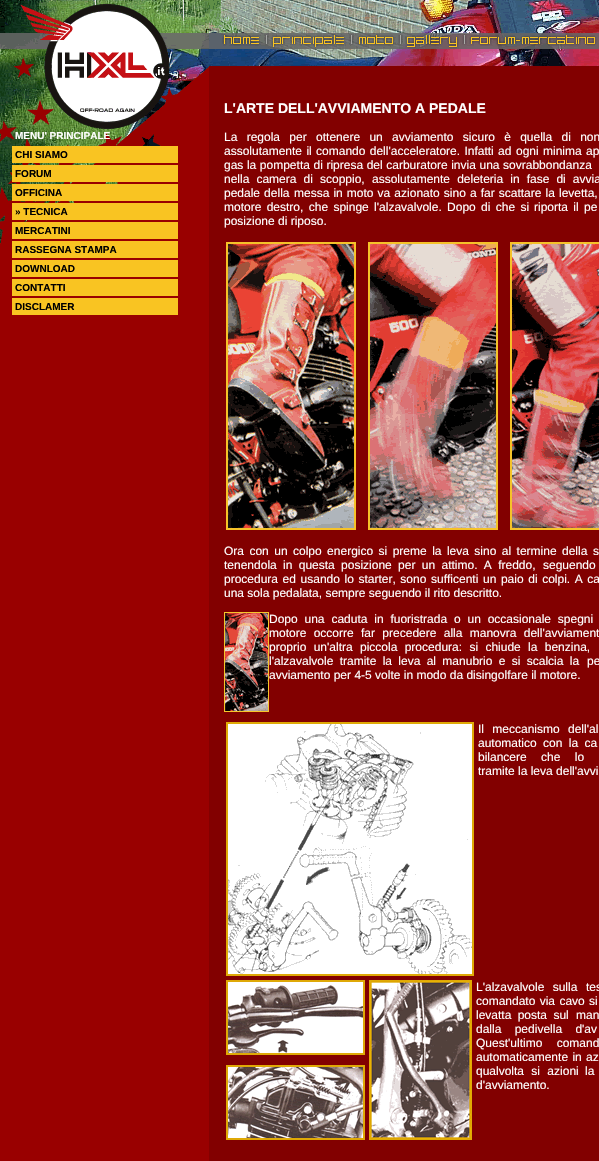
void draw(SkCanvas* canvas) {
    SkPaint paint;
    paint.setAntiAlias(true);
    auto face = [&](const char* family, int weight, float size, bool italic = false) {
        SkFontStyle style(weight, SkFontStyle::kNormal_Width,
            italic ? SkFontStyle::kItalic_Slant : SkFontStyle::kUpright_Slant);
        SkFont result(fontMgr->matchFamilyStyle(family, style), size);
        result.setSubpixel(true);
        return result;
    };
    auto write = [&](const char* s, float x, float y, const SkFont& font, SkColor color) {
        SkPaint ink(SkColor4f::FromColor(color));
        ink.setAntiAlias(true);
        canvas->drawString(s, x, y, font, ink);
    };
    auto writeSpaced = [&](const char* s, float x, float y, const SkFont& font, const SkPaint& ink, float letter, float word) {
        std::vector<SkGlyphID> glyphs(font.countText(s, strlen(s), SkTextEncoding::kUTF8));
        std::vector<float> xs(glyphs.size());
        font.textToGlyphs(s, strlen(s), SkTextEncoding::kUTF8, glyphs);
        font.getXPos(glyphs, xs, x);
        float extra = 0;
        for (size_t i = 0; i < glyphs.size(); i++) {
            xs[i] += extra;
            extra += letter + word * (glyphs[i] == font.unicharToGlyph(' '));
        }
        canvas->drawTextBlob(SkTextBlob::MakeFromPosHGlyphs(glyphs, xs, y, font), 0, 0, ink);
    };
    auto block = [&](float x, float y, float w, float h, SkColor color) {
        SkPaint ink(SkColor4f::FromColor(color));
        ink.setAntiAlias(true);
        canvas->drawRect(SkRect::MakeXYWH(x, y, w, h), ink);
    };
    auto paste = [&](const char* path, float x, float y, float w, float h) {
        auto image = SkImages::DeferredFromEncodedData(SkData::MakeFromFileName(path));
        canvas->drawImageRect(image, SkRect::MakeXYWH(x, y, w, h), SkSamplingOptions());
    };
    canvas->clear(SK_ColorWHITE);
    paste("pic1.png", 0, 66, 599, 1095);
    paste("pic2.png", 0, 0, 209, 244);
    auto kFont1 = face("Liberation Sans", 700, 10);
    write("MENU' PRINCIPALE", 15, 139, kFont1, SK_ColorWHITE);
    block(12, 146, 166, 17, SkColorSetRGB(249, 196, 34));
    write("CHI SIAMO", 15, 158, kFont1, SK_ColorBLACK);
    block(12, 165, 166, 17, SkColorSetRGB(249, 196, 34));
    write("FORUM", 15, 177, kFont1, SK_ColorBLACK);
    block(12, 184, 166, 17, SkColorSetRGB(249, 196, 34));
    write("OFFICINA", 15, 196, kFont1, SK_ColorBLACK);
    block(12, 203, 166, 17, SkColorSetRGB(249, 196, 34));
    write("» TECNICA", 15, 215, kFont1, SK_ColorBLACK);
    block(12, 222, 166, 17, SkColorSetRGB(249, 196, 34));
    write("MERCATINI", 15, 234, kFont1, SK_ColorBLACK);
    block(12, 241, 166, 17, SkColorSetRGB(249, 196, 34));
    write("RASSEGNA STAMPA", 15, 253, kFont1, SK_ColorBLACK);
    block(12, 260, 166, 17, SkColorSetRGB(249, 196, 34));
    write("DOWNLOAD", 15, 272, kFont1, SK_ColorBLACK);
    block(12, 279, 166, 17, SkColorSetRGB(249, 196, 34));
    write("CONTATTI", 15, 291, kFont1, SK_ColorBLACK);
    block(12, 298, 166, 17, SkColorSetRGB(249, 196, 34));
    write("DISCLAMER", 15, 310, kFont1, SK_ColorBLACK);
    paste("pic3.png", 209, 0, 390, 33);
    paste("pic4.png", 209, 33, 56, 16);
    paste("pic5.png", 265, 33, 4, 16);
    paste("pic6.png", 269, 33, 80, 16);
    paste("pic7.png", 349, 33, 5, 16);
    paste("pic8.png", 354, 33, 44, 16);
    paste("pic9.png", 398, 33, 5, 16);
    paste("pic10.png", 403, 33, 59, 16);
    paste("pic11.png", 462, 33, 5, 16);
    paste("pic12.png", 467, 33, 132, 16);
    paste("pic13.png", 209, 49, 390, 17);
    auto kFont2 = face("Liberation Sans", 700, 14);
    write("L'ARTE DELL'AVVIAMENTO A PEDALE", 224, 113, kFont2, SK_ColorWHITE);
    auto kFont3 = face("Liberation Sans", 400, 12);
    paint.setColor(SK_ColorWHITE);
    writeSpaced("La regola per ottenere un avviamento sicuro è quella di non", 224, 141, kFont3, paint, 0, 6);
    writeSpaced("assolutamente il comando dell'acceleratore. Infatti ad", 224, 155, kFont3, paint, 0, 1);
    writeSpaced("ogni minima ap", 516, 155, kFont3, paint, 0, 1);
    writeSpaced("gas la pompetta di ripresa del carburatore invia una sovrabbondanza", 224, 169, kFont3, paint, 0, 0.25f);
    writeSpaced("nella camera di scoppio,", 224, 183, kFont3, paint, 0, 3.75f);
    writeSpaced("assolutamente deleteria in fase di avvia", 372, 183, kFont3, paint, 0, 3.75f);
    writeSpaced("pedale della", 224, 197, kFont3, paint, 0, 0.75f);
    writeSpaced("messa in moto va azionato sino a far scattare la levetta,", 294, 197, kFont3, paint, 0, 0.75f);
    writeSpaced("motore destro, che spinge l'alzavalvole. Dopo di che si", 224, 211, kFont3, paint, 0, 2);
    writeSpaced("riporta il pe", 534, 211, kFont3, paint, 0, 2);
    write("posizione di riposo.", 224, 225, kFont3, SK_ColorWHITE);
    paste("pic14.png", 226, 242, 130, 288);
    paste("pic15.png", 368, 242, 130, 288);
    paste("pic16.png", 510, 242, 89, 288);
    writeSpaced("Ora con un colpo energico si preme la leva sino al termine della", 224, 555, kFont3, paint, 0, 2.1f);
    writeSpaced("s", 593, 555, kFont3, paint, 0, 2.1f);
    writeSpaced("tenendola in questa posizione per un attimo. A freddo,", 224, 569, kFont3, paint, 0, 3);
    writeSpaced("seguendo", 543, 569, kFont3, paint, 0, 3);
    writeSpaced("procedura ed usando lo starter, sono sufficenti", 224, 583, kFont3, paint, 0, 1.25f);
    writeSpaced("un paio di colpi. A ca", 483, 583, kFont3, paint, 0, 1.25f);
    write("una sola pedalata, sempre seguendo il rito descritto.", 224, 597, kFont3, SK_ColorWHITE);
    paste("pic17.png", 224, 612, 45, 100);
    writeSpaced("Dopo una caduta in fuoristrada o un occasionale spegni", 269, 623, kFont3, paint, 0, 3.5f);
    writeSpaced("motore occorre far precedere alla manovra dell'avviament", 269, 637, kFont3, paint, 0, 4);
    writeSpaced("proprio un'altra piccola procedura: si chiude la benzina,", 269, 651, kFont3, paint, 0, 4);
    writeSpaced("l'alzavalvole tramite la leva al manubrio e si scalcia la", 269, 665, kFont3, paint, 0, 3);
    writeSpaced("pe", 587, 665, kFont3, paint, 0, 3);
    write("avviamento per 4-5 volte in modo da disingolfare il motore.", 269, 679, kFont3, SK_ColorWHITE);
    paste("pic18.png", 226, 722, 248, 254);
    writeSpaced("Il meccanismo dell'al", 478, 733, kFont3, paint, 0, 5);
    writeSpaced("automatico con la ca", 478, 747, kFont3, paint, 0, 3);
    writeSpaced("bilancere che lo", 478, 761, kFont3, paint, 0, 11);
    write("tramite la leva dell'avvi", 478, 775, kFont3, SK_ColorWHITE);
    paste("pic19.png", 226, 980, 139, 75);
    paste("pic20.png", 369, 980, 103, 160);
    writeSpaced("L'alzavalvole sulla", 476, 991, kFont3, paint, 0, 5);
    writeSpaced("tes", 586, 991, kFont3, paint, 0, 5);
    writeSpaced("comandato via cavo si", 476, 1005, kFont3, paint, 0, 1);
    writeSpaced("levatta posta sul", 476, 1019, kFont3, paint, 0, 3);
    writeSpaced("man", 576, 1019, kFont3, paint, 0, 3);
    writeSpaced("dalla pedivella d'av", 476, 1033, kFont3, paint, 0, 10);
    writeSpaced("Quest'ultimo comand", 476, 1047, kFont3, paint, 0, 11);
    writeSpaced("automaticamente in az", 476, 1061, kFont3, paint, 0, 1);
    writeSpaced("qualvolta si azioni", 476, 1075, kFont3, paint, 0, 4);
    writeSpaced("la", 585, 1075, kFont3, paint, 0, 4);
    write("d'avviamento.", 476, 1089, kFont3, SK_ColorWHITE);
    paste("pic21.png", 226, 1065, 139, 75);
}
